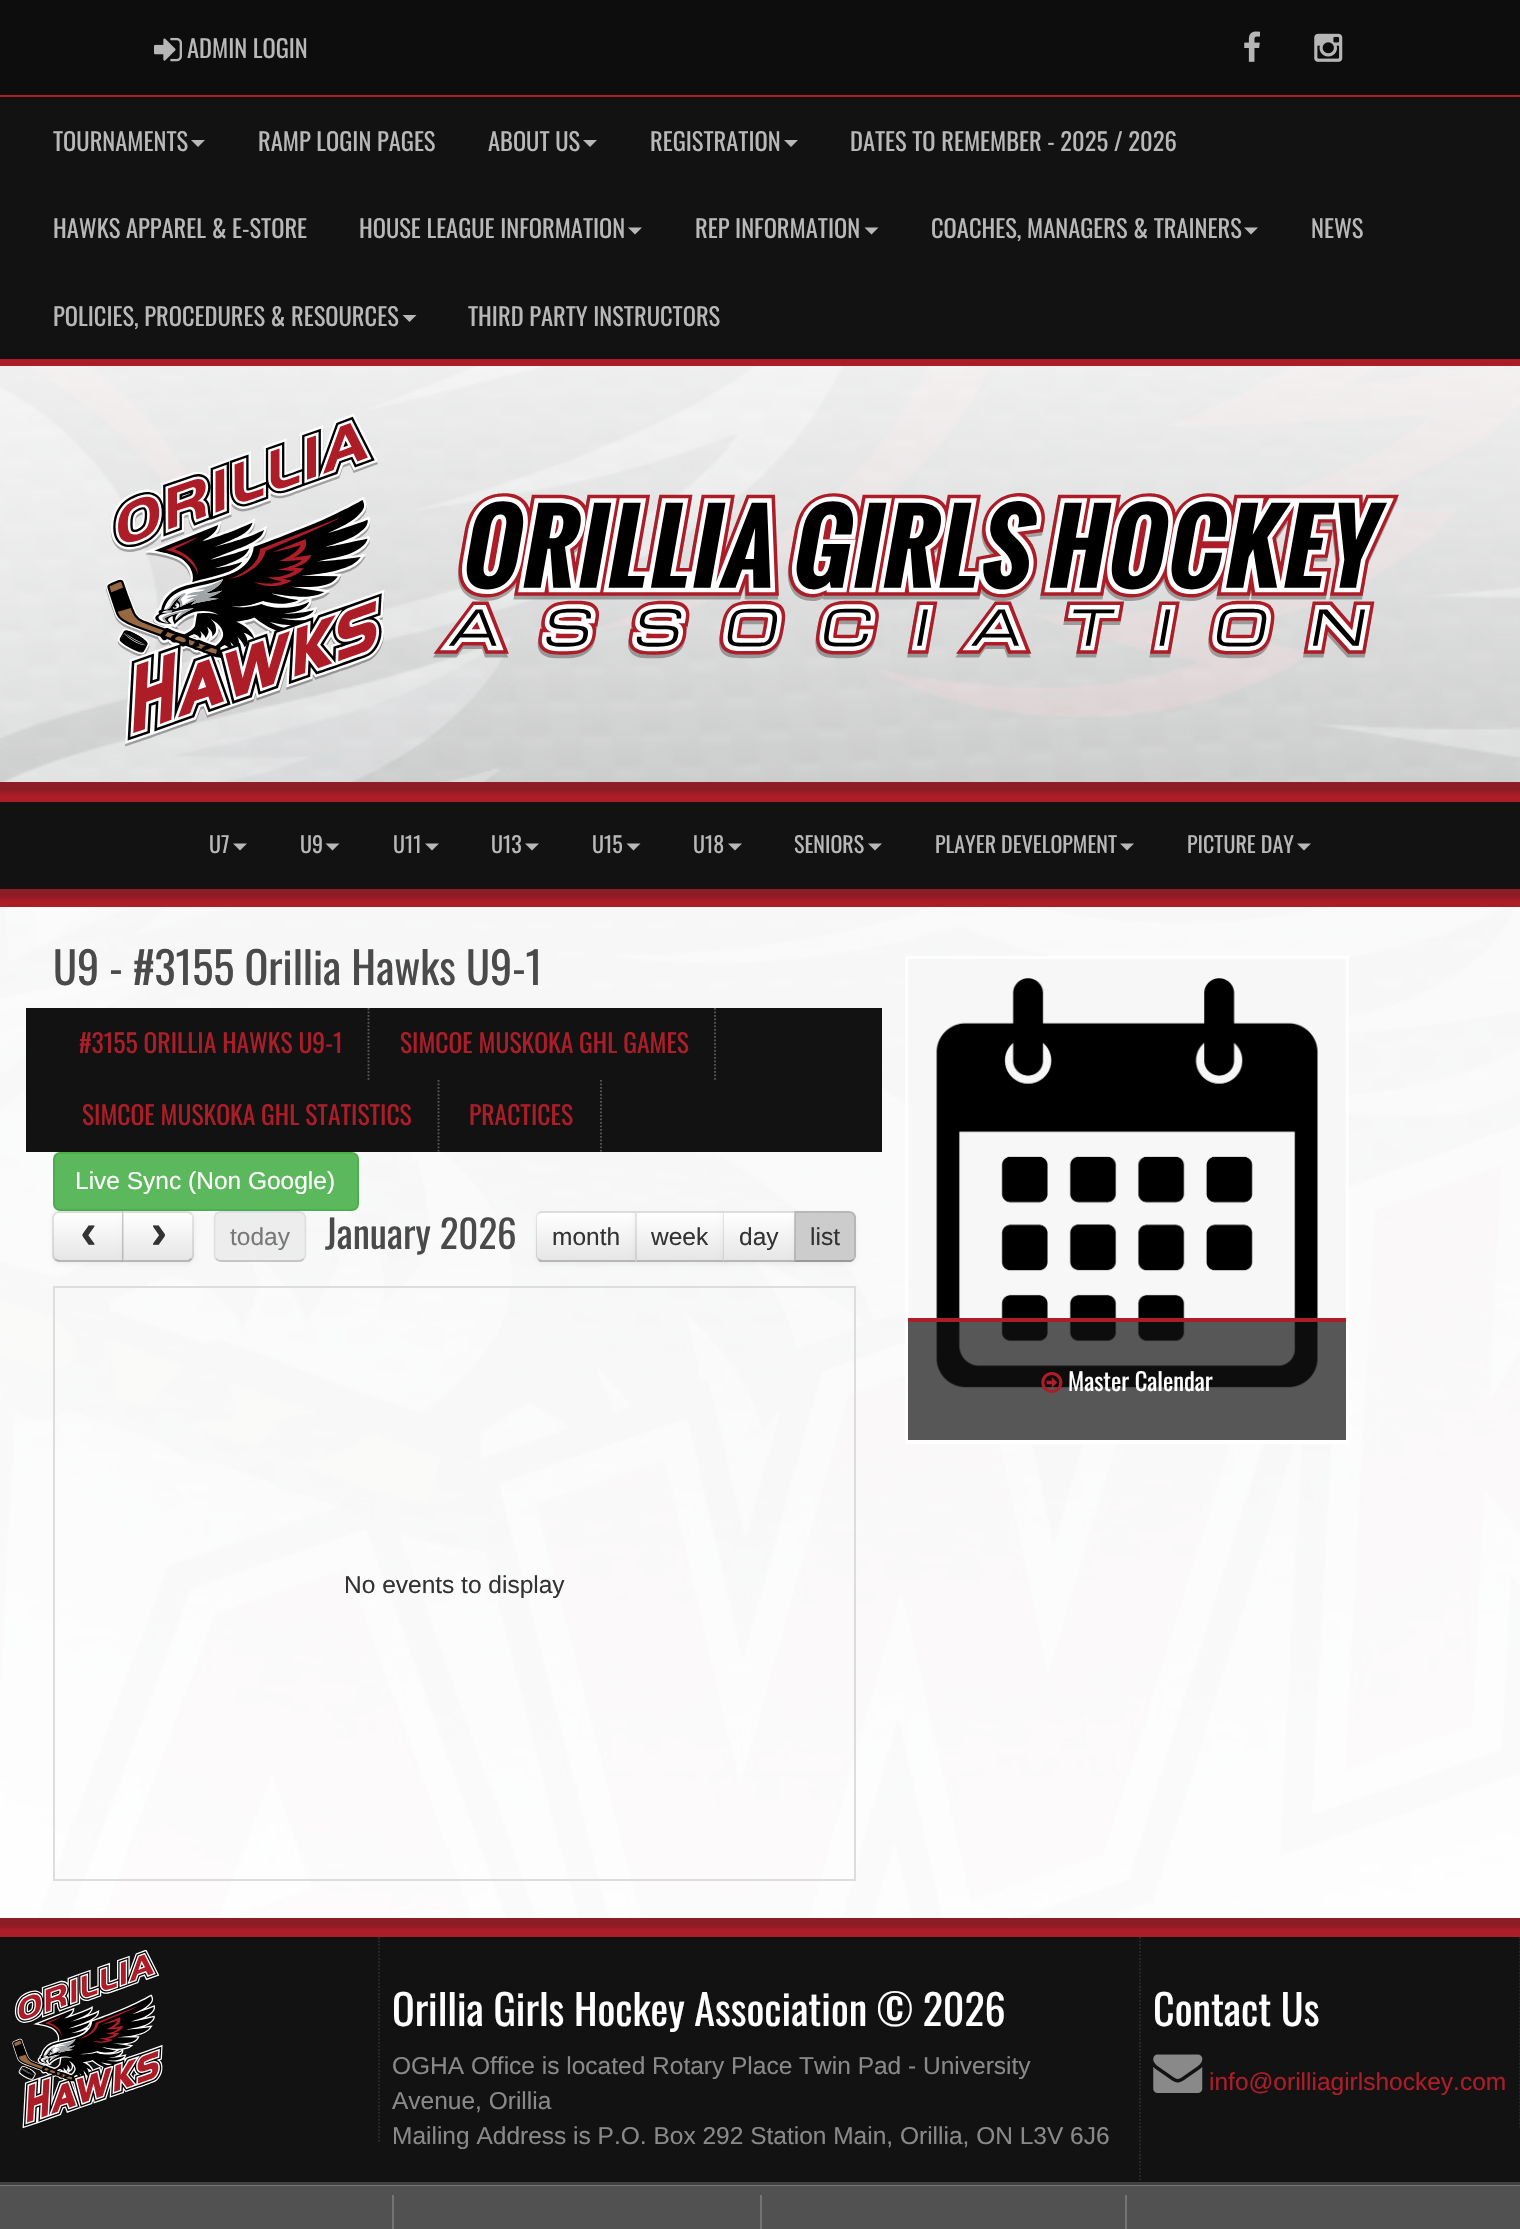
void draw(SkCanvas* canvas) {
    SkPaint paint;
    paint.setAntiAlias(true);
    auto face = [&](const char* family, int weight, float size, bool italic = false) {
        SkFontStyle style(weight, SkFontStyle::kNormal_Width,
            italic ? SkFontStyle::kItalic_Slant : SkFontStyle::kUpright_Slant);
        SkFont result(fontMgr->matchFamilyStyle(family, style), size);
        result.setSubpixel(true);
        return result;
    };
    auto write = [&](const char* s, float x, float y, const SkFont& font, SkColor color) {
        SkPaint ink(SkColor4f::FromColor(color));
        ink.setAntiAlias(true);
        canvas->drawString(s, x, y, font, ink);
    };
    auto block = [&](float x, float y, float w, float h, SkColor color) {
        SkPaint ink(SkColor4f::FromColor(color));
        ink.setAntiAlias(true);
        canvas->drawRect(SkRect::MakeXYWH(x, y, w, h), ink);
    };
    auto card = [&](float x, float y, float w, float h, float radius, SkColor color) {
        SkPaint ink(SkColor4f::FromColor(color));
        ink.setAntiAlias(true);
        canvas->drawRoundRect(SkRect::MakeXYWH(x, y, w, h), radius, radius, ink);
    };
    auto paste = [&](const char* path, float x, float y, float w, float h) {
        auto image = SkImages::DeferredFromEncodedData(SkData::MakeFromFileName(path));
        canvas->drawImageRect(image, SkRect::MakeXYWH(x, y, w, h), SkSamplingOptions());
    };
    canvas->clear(SK_ColorWHITE);
    block(0, 95, 1520, 2, SkColorSetRGB(172, 29, 40));
    block(0, 0, 1520, 95, SkColorSetRGB(13, 13, 13));
    paste("pic1.png", 154, 37, 28, 25);
    auto kFont1 = face("Oswald", 400, 24.5f);
    write("ADMIN LOGIN", 187, 58, kFont1, SkColorSetRGB(184, 184, 184));
    paste("pic2.png", 1244, 31, 16, 31);
    paste("pic3.png", 1314, 33, 29, 29);
    block(0, 97, 1520, 262, SkColorSetRGB(18, 18, 18));
    block(0, 359, 1520, 7, SkColorSetRGB(172, 29, 40));
    write("TOURNAMENTS", 53, 151, kFont1, SkColorSetRGB(184, 184, 184));
    paint.setColor(SkColorSetRGB(184, 184, 184));
    canvas->drawPath(SkPathBuilder().moveTo(191, 140).lineTo(205, 140).lineTo(198, 147).close().detach(), paint);
    write("RAMP LOGIN PAGES", 258, 151, kFont1, SkColorSetRGB(184, 184, 184));
    write("ABOUT US", 488, 151, kFont1, SkColorSetRGB(184, 184, 184));
    canvas->drawPath(SkPathBuilder().moveTo(583, 140).lineTo(597, 140).lineTo(590, 147).close().detach(), paint);
    write("REGISTRATION", 650, 151, kFont1, SkColorSetRGB(184, 184, 184));
    canvas->drawPath(SkPathBuilder().moveTo(784, 140).lineTo(798, 140).lineTo(791, 147).close().detach(), paint);
    write("DATES TO REMEMBER - 2025 / 2026", 850, 151, kFont1, SkColorSetRGB(184, 184, 184));
    write("HAWKS APPAREL & E-STORE", 53, 238, kFont1, SkColorSetRGB(184, 184, 184));
    write("HOUSE LEAGUE INFORMATION", 359, 238, kFont1, SkColorSetRGB(184, 184, 184));
    canvas->drawPath(SkPathBuilder().moveTo(628, 227.5f).lineTo(642, 227.5f).lineTo(635, 234.5f).close().detach(), paint);
    write("REP INFORMATION", 695, 238, kFont1, SkColorSetRGB(184, 184, 184));
    canvas->drawPath(SkPathBuilder().moveTo(864.5f, 227.5f).lineTo(878.5f, 227.5f).lineTo(871.5f, 234.5f).close().detach(), paint);
    write("COACHES, MANAGERS & TRAINERS", 931, 238, kFont1, SkColorSetRGB(184, 184, 184));
    canvas->drawPath(SkPathBuilder().moveTo(1244, 227.5f).lineTo(1258, 227.5f).lineTo(1251, 234.5f).close().detach(), paint);
    write("NEWS", 1311, 238, kFont1, SkColorSetRGB(184, 184, 184));
    write("POLICIES, PROCEDURES & RESOURCES", 53, 326, kFont1, SkColorSetRGB(184, 184, 184));
    canvas->drawPath(SkPathBuilder().moveTo(402.5f, 315).lineTo(416.5f, 315).lineTo(409.5f, 322).close().detach(), paint);
    write("THIRD PARTY INSTRUCTORS", 468, 326, kFont1, SkColorSetRGB(184, 184, 184));
    paste("pic4.png", 0, 366, 1520, 1552);
    paste("pic5.png", 0, 366, 1520, 416);
    paste("pic6.png", 106, 414, 1293, 333);
    block(0, 782, 1520, 20, SkColorSetRGB(172, 29, 40));
    paste("pic7.png", 0, 782, 1520, 13);
    block(0, 802, 1520, 87, SkColorSetRGB(18, 18, 18));
    auto kFont2 = face("Oswald", 400, 22);
    write("U7", 209, 853, kFont2, SkColorSetRGB(184, 184, 184));
    canvas->drawPath(SkPathBuilder().moveTo(233, 843.5f).lineTo(247, 843.5f).lineTo(240, 850.5f).close().detach(), paint);
    write("U9", 300, 853, kFont2, SkColorSetRGB(184, 184, 184));
    canvas->drawPath(SkPathBuilder().moveTo(325.5f, 843.5f).lineTo(339.5f, 843.5f).lineTo(332.5f, 850.5f).close().detach(), paint);
    write("U11", 393, 853, kFont2, SkColorSetRGB(184, 184, 184));
    canvas->drawPath(SkPathBuilder().moveTo(425, 843.5f).lineTo(439, 843.5f).lineTo(432, 850.5f).close().detach(), paint);
    write("U13", 491, 853, kFont2, SkColorSetRGB(184, 184, 184));
    canvas->drawPath(SkPathBuilder().moveTo(525, 843.5f).lineTo(539, 843.5f).lineTo(532, 850.5f).close().detach(), paint);
    write("U15", 592, 853, kFont2, SkColorSetRGB(184, 184, 184));
    canvas->drawPath(SkPathBuilder().moveTo(626.5f, 843.5f).lineTo(640.5f, 843.5f).lineTo(633.5f, 850.5f).close().detach(), paint);
    write("U18", 693, 853, kFont2, SkColorSetRGB(184, 184, 184));
    canvas->drawPath(SkPathBuilder().moveTo(728, 843.5f).lineTo(742, 843.5f).lineTo(735, 850.5f).close().detach(), paint);
    write("SENIORS", 794, 853, kFont2, SkColorSetRGB(184, 184, 184));
    canvas->drawPath(SkPathBuilder().moveTo(868, 843.5f).lineTo(882, 843.5f).lineTo(875, 850.5f).close().detach(), paint);
    write("PLAYER DEVELOPMENT", 935, 853, kFont2, SkColorSetRGB(184, 184, 184));
    canvas->drawPath(SkPathBuilder().moveTo(1120, 843.5f).lineTo(1134, 843.5f).lineTo(1127, 850.5f).close().detach(), paint);
    write("PICTURE DAY", 1187, 853, kFont2, SkColorSetRGB(184, 184, 184));
    canvas->drawPath(SkPathBuilder().moveTo(1297, 843.5f).lineTo(1311, 843.5f).lineTo(1304, 850.5f).close().detach(), paint);
    block(0, 889, 1520, 18, SkColorSetRGB(172, 29, 40));
    paste("pic8.png", 0, 889, 1520, 12);
    block(0, 907, 1520, 1011, SkColorSetARGB(230, 255, 255, 255));
    auto kFont3 = face("Oswald", 400, 44.25f);
    write("U9 - #3155 Orillia Hawks U9-1", 53, 985, kFont3, SkColorSetRGB(74, 74, 74));
    block(26, 1008, 856, 144, SkColorSetRGB(18, 18, 18));
    paint.setStyle(SkPaint::kStroke_Style);
    paint.setStrokeWidth(1.8f);
    paint.setColor(SkColorSetRGB(89, 89, 89));
    paint.setPathEffect(SkDashPathEffect::Make({{1.75f, 1.75f}}, 0));
    canvas->drawPath(SkPathBuilder().moveTo(368.5f, 1008).lineTo(368.5f, 1080).detach(), paint);
    paint.setPathEffect(nullptr);
    auto kFont4 = face("Oswald", 400, 25.6f);
    write("#3155 ORILLIA HAWKS U9-1", 79, 1053, kFont4, SkColorSetRGB(172, 29, 40));
    paint.setPathEffect(SkDashPathEffect::Make({{1.75f, 1.75f}}, 0));
    canvas->drawPath(SkPathBuilder().moveTo(715, 1008).lineTo(715, 1080).detach(), paint);
    paint.setPathEffect(nullptr);
    write("SIMCOE MUSKOKA GHL GAMES", 400, 1053, kFont4, SkColorSetRGB(172, 29, 40));
    paint.setPathEffect(SkDashPathEffect::Make({{1.75f, 1.75f}}, 0));
    canvas->drawPath(SkPathBuilder().moveTo(438.5f, 1080).lineTo(438.5f, 1151.5f).detach(), paint);
    paint.setPathEffect(nullptr);
    write("SIMCOE MUSKOKA GHL STATISTICS", 82, 1125, kFont4, SkColorSetRGB(172, 29, 40));
    paint.setPathEffect(SkDashPathEffect::Make({{1.75f, 1.75f}}, 0));
    canvas->drawPath(SkPathBuilder().moveTo(601, 1080).lineTo(601, 1151.5f).detach(), paint);
    paint.setPathEffect(nullptr);
    write("PRACTICES", 469, 1125, kFont4, SkColorSetRGB(172, 29, 40));
    paint.setStyle(SkPaint::kFill_Style);
    paint.setColor(SkColorSetRGB(92, 184, 92));
    canvas->drawRoundRect(SkRect::MakeXYWH(54, 1153, 304, 57), 6, 6, paint);
    paint.setStyle(SkPaint::kStroke_Style);
    paint.setStrokeWidth(2);
    paint.setColor(SkColorSetRGB(76, 174, 76));
    canvas->drawRoundRect(SkRect::MakeXYWH(54, 1153, 304, 57), 6, 6, paint);
    auto kFont5 = face("Liberation Sans", 400, 24.5f);
    write("Live Sync (Non Google)", 75, 1189, kFont5, SK_ColorWHITE);
    paint.setStyle(SkPaint::kFill_Style);
    paint.setColor(SkColorSetARGB(13, 0, 0, 0));
    paint.setMaskFilter(SkMaskFilter::MakeBlur(kNormal_SkBlurStyle, 2));
    canvas->drawRoundRect(SkRect::MakeXYWH(53, 1213, 71, 51), 7, 7, paint);
    paint.setMaskFilter(nullptr);
    paint.setColor(SkColorSetRGB(245, 245, 245));
    canvas->drawPath(SkPathBuilder().moveTo(60, 1211).lineTo(124, 1211).lineTo(124, 1262).lineTo(60, 1262).cubicTo(56, 1262, 53, 1259, 53, 1255).lineTo(53, 1218).cubicTo(53, 1214, 56, 1211, 60, 1211).close().detach(), paint);
    canvas->save();
    canvas->clipPath(SkPathBuilder().moveTo(60, 1211).lineTo(124, 1211).lineTo(124, 1262).lineTo(60, 1262).cubicTo(56, 1262, 53, 1259, 53, 1255).lineTo(53, 1218).cubicTo(53, 1214, 56, 1211, 60, 1211).close().detach(), true);
    {
        const SkColor colors[] = {SK_ColorWHITE, SkColorSetRGB(230, 230, 230)};
        const float stops[] = {0, 1};
        const SkPoint ends[] = {{88, 1213}, {88, 1260}};
        paint.setShader(SkGradientShader::MakeLinear(ends, colors, stops, 2, SkTileMode::kClamp));
        paint.setAlpha(255);
    }
    canvas->drawRect(SkRect::MakeXYWH(53, 1213, 70, 47), paint);
    canvas->restore();
    paint.setShader(nullptr);
    paint.setColor(SkColorSetARGB(51, 255, 255, 255));
    canvas->drawPath(SkPathBuilder().moveTo(60, 1214).lineTo(122, 1214).lineTo(122, 1260).lineTo(123, 1260).lineTo(123, 1213).lineTo(59, 1213).cubicTo(56, 1213, 54, 1215, 54, 1218).lineTo(54, 1220).cubicTo(54, 1217, 57, 1214, 60, 1214).close().detach(), paint);
    paint.setColor(SkColorSetARGB(26, 0, 0, 0));
    canvas->drawPath(SkPathBuilder().moveTo(60, 1211).cubicTo(58, 1211, 56, 1212, 54, 1213).lineTo(56, 1214).cubicTo(57, 1214, 58, 1213, 60, 1213).lineTo(122, 1213).lineTo(124, 1211).close().detach(), paint);
    canvas->drawPath(SkPathBuilder().moveTo(124, 1211).lineTo(124, 1262).lineTo(122, 1260).lineTo(122, 1213).close().detach(), paint);
    paint.setColor(SkColorSetARGB(64, 0, 0, 0));
    canvas->drawPath(SkPathBuilder().moveTo(58, 1262).lineTo(54, 1260).lineTo(56, 1259).cubicTo(57, 1259, 58, 1260, 60, 1260).lineTo(122, 1260).lineTo(124, 1262).close().detach(), paint);
    paint.setColor(SkColorSetARGB(26, 0, 0, 0));
    canvas->drawPath(SkPathBuilder().moveTo(52, 1216).lineTo(54, 1213).lineTo(56, 1214).cubicTo(55, 1215, 54, 1216, 54, 1218).lineTo(54, 1255).cubicTo(54, 1256, 55, 1258, 56, 1259).lineTo(54, 1260).lineTo(52, 1257).close().detach(), paint);
    auto kFont6 = face("Liberation Mono", 700, 49);
    write("‹", 74, 1248, kFont6, SkColorSetRGB(51, 51, 51));
    paint.setColor(SkColorSetARGB(13, 0, 0, 0));
    paint.setMaskFilter(SkMaskFilter::MakeBlur(kNormal_SkBlurStyle, 2));
    canvas->drawRoundRect(SkRect::MakeXYWH(123, 1213, 71, 51), 7, 7, paint);
    paint.setMaskFilter(nullptr);
    paint.setColor(SkColorSetRGB(245, 245, 245));
    canvas->drawPath(SkPathBuilder().moveTo(123, 1211).lineTo(187, 1211).cubicTo(191, 1211, 194, 1214, 194, 1218).lineTo(194, 1255).cubicTo(194, 1259, 191, 1262, 187, 1262).lineTo(123, 1262).close().detach(), paint);
    canvas->save();
    canvas->clipPath(SkPathBuilder().moveTo(123, 1211).lineTo(187, 1211).cubicTo(191, 1211, 194, 1214, 194, 1218).lineTo(194, 1255).cubicTo(194, 1259, 191, 1262, 187, 1262).lineTo(123, 1262).close().detach(), true);
    {
        const SkColor colors[] = {SK_ColorWHITE, SkColorSetRGB(230, 230, 230)};
        const float stops[] = {0, 1};
        const SkPoint ends[] = {{158, 1213}, {158, 1260}};
        paint.setShader(SkGradientShader::MakeLinear(ends, colors, stops, 2, SkTileMode::kClamp));
        paint.setAlpha(255);
    }
    canvas->drawRect(SkRect::MakeXYWH(123, 1213, 71, 47), paint);
    canvas->restore();
    paint.setShader(nullptr);
    paint.setColor(SkColorSetARGB(51, 255, 255, 255));
    canvas->drawPath(SkPathBuilder().moveTo(124, 1214).lineTo(187, 1214).cubicTo(190, 1214, 192, 1217, 192, 1220).lineTo(192, 1256).lineTo(192, 1259).cubicTo(192, 1258, 193, 1256, 193, 1255).lineTo(193, 1218).cubicTo(193, 1215, 191, 1213, 188, 1213).lineTo(124, 1213).close().detach(), paint);
    paint.setColor(SkColorSetARGB(26, 0, 0, 0));
    canvas->drawPath(SkPathBuilder().moveTo(122, 1211).lineTo(124, 1213).lineTo(188, 1213).lineTo(191, 1215).lineTo(192, 1213).cubicTo(191, 1212, 189, 1211, 187, 1211).close().detach(), paint);
    canvas->drawPath(SkPathBuilder().moveTo(192, 1213).cubicTo(193, 1214, 194, 1216, 194, 1218).lineTo(194, 1255).cubicTo(194, 1257, 193, 1259, 192, 1260).lineTo(191, 1258).cubicTo(192, 1258, 192, 1256, 192, 1255).lineTo(192, 1218).cubicTo(192, 1217, 192, 1215, 191, 1215).close().detach(), paint);
    paint.setColor(SkColorSetARGB(64, 0, 0, 0));
    canvas->drawPath(SkPathBuilder().moveTo(192, 1260).lineTo(189, 1262).lineTo(122, 1262).lineTo(124, 1260).lineTo(188, 1260).lineTo(191, 1258).close().detach(), paint);
    paint.setColor(SkColorSetARGB(26, 0, 0, 0));
    canvas->drawPath(SkPathBuilder().moveTo(124, 1213).lineTo(122, 1211).lineTo(122, 1262).lineTo(124, 1260).close().detach(), paint);
    write("›", 144, 1248, kFont6, SkColorSetRGB(51, 51, 51));
    card(214, 1211, 92, 51, 7, SkColorSetARGB(166, 230, 230, 230));
    paint.setStyle(SkPaint::kStroke_Style);
    paint.setStrokeWidth(1.8f);
    paint.setColor(SkColorSetRGB(198, 198, 198));
    canvas->drawPath(SkPathBuilder().moveTo(303.5f, 1259).cubicTo(302.5f, 1260, 301, 1261, 299, 1261).lineTo(220.5f, 1261).cubicTo(219, 1261, 217.5f, 1260, 216, 1259).detach(), paint);
    paint.setColor(SkColorSetARGB(26, 86, 87, 87));
    canvas->drawPath(SkPathBuilder().moveTo(216, 1259).cubicTo(215, 1258, 214.5f, 1256.5f, 214.5f, 1255).lineTo(214.5f, 1218).cubicTo(214.5f, 1216.5f, 215, 1215, 216, 1213.5f).cubicTo(217.5f, 1212.5f, 219, 1212, 220.5f, 1212).lineTo(299, 1212).cubicTo(301, 1212, 302.5f, 1212.5f, 303.5f, 1213.5f).cubicTo(304.5f, 1215, 305.5f, 1216.5f, 305.5f, 1218).lineTo(305.5f, 1255).cubicTo(305.5f, 1256.5f, 304.5f, 1258, 303.5f, 1259).detach(), paint);
    write("today", 230, 1245, kFont5, SkColorSetRGB(120, 120, 120));
    auto kFont7 = face("Oswald", 400, 39);
    write("January 2026", 325, 1249, kFont7, SkColorSetRGB(74, 74, 74));
    paint.setStyle(SkPaint::kFill_Style);
    paint.setColor(SkColorSetARGB(13, 0, 0, 0));
    paint.setMaskFilter(SkMaskFilter::MakeBlur(kNormal_SkBlurStyle, 2));
    canvas->drawRoundRect(SkRect::MakeXYWH(536, 1213, 101, 51), 7, 7, paint);
    paint.setMaskFilter(nullptr);
    paint.setColor(SkColorSetRGB(245, 245, 245));
    canvas->drawPath(SkPathBuilder().moveTo(543, 1211).lineTo(637, 1211).lineTo(637, 1262).lineTo(543, 1262).cubicTo(539, 1262, 536, 1259, 536, 1255).lineTo(536, 1218).cubicTo(536, 1214, 539, 1211, 543, 1211).close().detach(), paint);
    canvas->save();
    canvas->clipPath(SkPathBuilder().moveTo(543, 1211).lineTo(637, 1211).lineTo(637, 1262).lineTo(543, 1262).cubicTo(539, 1262, 536, 1259, 536, 1255).lineTo(536, 1218).cubicTo(536, 1214, 539, 1211, 543, 1211).close().detach(), true);
    {
        const SkColor colors[] = {SK_ColorWHITE, SkColorSetRGB(230, 230, 230)};
        const float stops[] = {0, 1};
        const SkPoint ends[] = {{586, 1213}, {586, 1260}};
        paint.setShader(SkGradientShader::MakeLinear(ends, colors, stops, 2, SkTileMode::kClamp));
        paint.setAlpha(255);
    }
    canvas->drawRect(SkRect::MakeXYWH(536, 1213, 99, 47), paint);
    canvas->restore();
    paint.setShader(nullptr);
    paint.setColor(SkColorSetARGB(26, 0, 0, 0));
    canvas->drawPath(SkPathBuilder().moveTo(542, 1211).cubicTo(540, 1211, 539, 1212, 538, 1213).lineTo(539, 1214).lineTo(542, 1213).lineTo(635, 1213).lineTo(637, 1211).close().detach(), paint);
    paint.setColor(SkColorSetARGB(64, 0, 0, 0));
    canvas->drawPath(SkPathBuilder().moveTo(637, 1262).lineTo(540, 1262).lineTo(538, 1260).lineTo(539, 1259).lineTo(542, 1260).lineTo(635, 1260).close().detach(), paint);
    paint.setColor(SkColorSetARGB(26, 0, 0, 0));
    canvas->drawPath(SkPathBuilder().moveTo(538, 1213).cubicTo(537, 1214, 536, 1216, 536, 1218).lineTo(536, 1255).cubicTo(536, 1257, 537, 1258, 538, 1260).lineTo(539, 1259).cubicTo(538, 1258, 537, 1256, 537, 1255).lineTo(537, 1218).cubicTo(537, 1216, 538, 1215, 539, 1214).close().detach(), paint);
    write("month", 552, 1245, kFont5, SkColorSetRGB(51, 51, 51));
    paint.setColor(SkColorSetARGB(13, 0, 0, 0));
    paint.setMaskFilter(SkMaskFilter::MakeBlur(kNormal_SkBlurStyle, 2));
    canvas->drawRect(SkRect::MakeXYWH(635, 1213, 90, 51), paint);
    paint.setMaskFilter(nullptr);
    block(635, 1211, 88, 51, SkColorSetRGB(245, 245, 245));
    {
        const SkColor colors[] = {SK_ColorWHITE, SkColorSetRGB(230, 230, 230)};
        const float stops[] = {0, 1};
        const SkPoint ends[] = {{680, 1213}, {680, 1260}};
        paint.setShader(SkGradientShader::MakeLinear(ends, colors, stops, 2, SkTileMode::kClamp));
        paint.setAlpha(255);
    }
    canvas->drawRect(SkRect::MakeXYWH(635, 1213, 88, 47), paint);
    paint.setShader(nullptr);
    paint.setColor(SkColorSetRGB(221, 221, 221));
    canvas->drawPath(SkPathBuilder().moveTo(635, 1211).lineTo(724, 1211).lineTo(723, 1213).lineTo(637, 1213).close().detach(), paint);
    paint.setColor(SkColorSetARGB(64, 0, 0, 0));
    canvas->drawPath(SkPathBuilder().moveTo(724, 1262).lineTo(635, 1262).lineTo(637, 1260).lineTo(723, 1260).close().detach(), paint);
    paint.setColor(SkColorSetARGB(26, 0, 0, 0));
    canvas->drawPath(SkPathBuilder().moveTo(635, 1262).lineTo(635, 1211).lineTo(637, 1213).lineTo(637, 1260).close().detach(), paint);
    write("week", 651, 1245, kFont5, SkColorSetRGB(51, 51, 51));
    paint.setColor(SkColorSetARGB(13, 0, 0, 0));
    paint.setMaskFilter(SkMaskFilter::MakeBlur(kNormal_SkBlurStyle, 2));
    canvas->drawRect(SkRect::MakeXYWH(723, 1213, 73, 51), paint);
    paint.setMaskFilter(nullptr);
    block(723, 1211, 72, 51, SkColorSetRGB(245, 245, 245));
    {
        const SkColor colors[] = {SK_ColorWHITE, SkColorSetRGB(230, 230, 230)};
        const float stops[] = {0, 1};
        const SkPoint ends[] = {{760, 1213}, {760, 1260}};
        paint.setShader(SkGradientShader::MakeLinear(ends, colors, stops, 2, SkTileMode::kClamp));
        paint.setAlpha(255);
    }
    canvas->drawRect(SkRect::MakeXYWH(723, 1213, 72, 47), paint);
    paint.setShader(nullptr);
    paint.setColor(SkColorSetRGB(221, 221, 221));
    canvas->drawPath(SkPathBuilder().moveTo(723, 1211).lineTo(796, 1211).lineTo(794, 1213).lineTo(724, 1213).close().detach(), paint);
    paint.setColor(SkColorSetARGB(26, 0, 0, 0));
    canvas->drawPath(SkPathBuilder().moveTo(796, 1211).lineTo(796, 1262).lineTo(794, 1260).lineTo(794, 1213).close().detach(), paint);
    paint.setColor(SkColorSetARGB(64, 0, 0, 0));
    canvas->drawPath(SkPathBuilder().moveTo(796, 1262).lineTo(723, 1262).lineTo(724, 1260).lineTo(794, 1260).close().detach(), paint);
    paint.setColor(SkColorSetARGB(26, 0, 0, 0));
    canvas->drawPath(SkPathBuilder().moveTo(723, 1262).lineTo(723, 1211).lineTo(724, 1213).lineTo(724, 1260).close().detach(), paint);
    write("day", 739, 1245, kFont5, SkColorSetRGB(51, 51, 51));
    paint.setColor(SkColorSetARGB(13, 0, 0, 0));
    paint.setMaskFilter(SkMaskFilter::MakeBlur(kNormal_SkBlurStyle, 2));
    canvas->drawRoundRect(SkRect::MakeXYWH(795, 1213, 61, 51), 7, 7, paint);
    paint.setMaskFilter(nullptr);
    paint.setColor(SkColorSetRGB(204, 204, 204));
    canvas->drawPath(SkPathBuilder().moveTo(795, 1211).lineTo(849, 1211).cubicTo(853, 1211, 856, 1214, 856, 1218).lineTo(856, 1255).cubicTo(856, 1259, 853, 1262, 849, 1262).lineTo(795, 1262).close().detach(), paint);
    paint.setColor(SkColorSetARGB(26, 0, 0, 0));
    canvas->drawPath(SkPathBuilder().moveTo(794, 1211).lineTo(796, 1213).lineTo(849, 1213).cubicTo(850, 1213, 852, 1213, 852, 1214).lineTo(854, 1213).cubicTo(853, 1212, 851, 1211, 849, 1211).close().detach(), paint);
    canvas->drawPath(SkPathBuilder().moveTo(856, 1257).lineTo(854, 1260).lineTo(853, 1259).cubicTo(854, 1258, 854, 1256, 854, 1255).lineTo(854, 1218).cubicTo(854, 1216, 853, 1215, 852, 1214).lineTo(854, 1213).lineTo(856, 1216).close().detach(), paint);
    paint.setColor(SkColorSetARGB(64, 0, 0, 0));
    canvas->drawPath(SkPathBuilder().moveTo(854, 1260).lineTo(851, 1262).lineTo(794, 1262).lineTo(796, 1260).lineTo(849, 1260).cubicTo(850, 1260, 852, 1260, 853, 1259).close().detach(), paint);
    paint.setColor(SkColorSetARGB(26, 0, 0, 0));
    canvas->drawPath(SkPathBuilder().moveTo(796, 1213).lineTo(794, 1211).lineTo(794, 1262).lineTo(796, 1260).close().detach(), paint);
    write("list", 810, 1245, kFont5, SkColorSetRGB(51, 51, 51));
    paint.setStyle(SkPaint::kStroke_Style);
    paint.setStrokeWidth(2);
    paint.setColor(SkColorSetRGB(221, 221, 221));
    canvas->drawRect(SkRect::MakeXYWH(54, 1287, 801, 593), paint);
    write("No events to display", 344, 1593, kFont5, SkColorSetRGB(51, 51, 51));
    paint.setStrokeWidth(4);
    paint.setColor(SkColorSetARGB(230, 255, 255, 255));
    canvas->drawRect(SkRect::MakeXYWH(907, 958, 440, 484), paint);
    paste("pic9.png", 908, 959, 438, 481);
    block(908, 1322, 438, 118, SkColorSetARGB(179, 18, 18, 18));
    block(908, 1318, 438, 4, SkColorSetRGB(172, 29, 40));
    paste("pic10.png", 1041, 1372, 22, 21);
    write("Master Calendar", 1068, 1391, kFont1, SK_ColorWHITE);
    block(0, 1918, 1520, 19, SkColorSetRGB(172, 29, 40));
    paste("pic11.png", 0, 1918, 1520, 12);
    block(0, 1937, 1520, 245, SkColorSetRGB(18, 18, 18));
    paint.setStrokeWidth(1.8f);
    paint.setColor(SkColorSetRGB(42, 42, 42));
    paint.setPathEffect(SkDashPathEffect::Make({{1.75f, 1.75f}}, 0));
    canvas->drawPath(SkPathBuilder().moveTo(379, 1937).lineTo(379, 2142).detach(), paint);
    paint.setPathEffect(nullptr);
    paste("pic12.png", 12, 1950, 151, 179);
    paint.setPathEffect(SkDashPathEffect::Make({{1.75f, 1.75f}}, 0));
    canvas->drawPath(SkPathBuilder().moveTo(1140, 1937).lineTo(1140, 2182).detach(), paint);
    paint.setPathEffect(nullptr);
    auto kFont8 = face("Oswald", 400, 42);
    write("Orillia Girls Hockey Association © 2026", 392, 2026, kFont8, SK_ColorWHITE);
    write("OGHA Office is located Rotary Place Twin Pad - University", 392, 2074, kFont5, SkColorSetRGB(137, 137, 137));
    write("Avenue, Orillia", 392, 2109, kFont5, SkColorSetRGB(137, 137, 137));
    write("Mailing Address is P.O. Box 292 Station Main, Orillia, ON L3V 6J6", 392, 2144, kFont5, SkColorSetRGB(137, 137, 137));
    paint.setPathEffect(SkDashPathEffect::Make({{1.75f, 1.75f}}, 0));
    canvas->drawPath(SkPathBuilder().moveTo(1520, 1937).lineTo(1520, 2128).detach(), paint);
    paint.setPathEffect(nullptr);
    write("Contact Us", 1153, 2026, kFont8, SK_ColorWHITE);
    paste("pic13.png", 1153, 2054, 50, 39);
    write("info@orilliagirlshockey.com", 1209, 2090, kFont5, SkColorSetRGB(172, 29, 40));
    block(0, 2182, 1520, 4, SkColorSetRGB(65, 65, 65));
    block(0, 2186, 1520, 43, SkColorSetRGB(13, 13, 13));
    block(0, 2185, 1520, 44, SkColorSetARGB(71, 255, 255, 255));
    block(392, 2195, 2, 34, SkColorSetRGB(116, 116, 116));
    block(760, 2195, 2, 34, SkColorSetRGB(116, 116, 116));
    block(1125, 2195, 2, 34, SkColorSetRGB(116, 116, 116));
}
